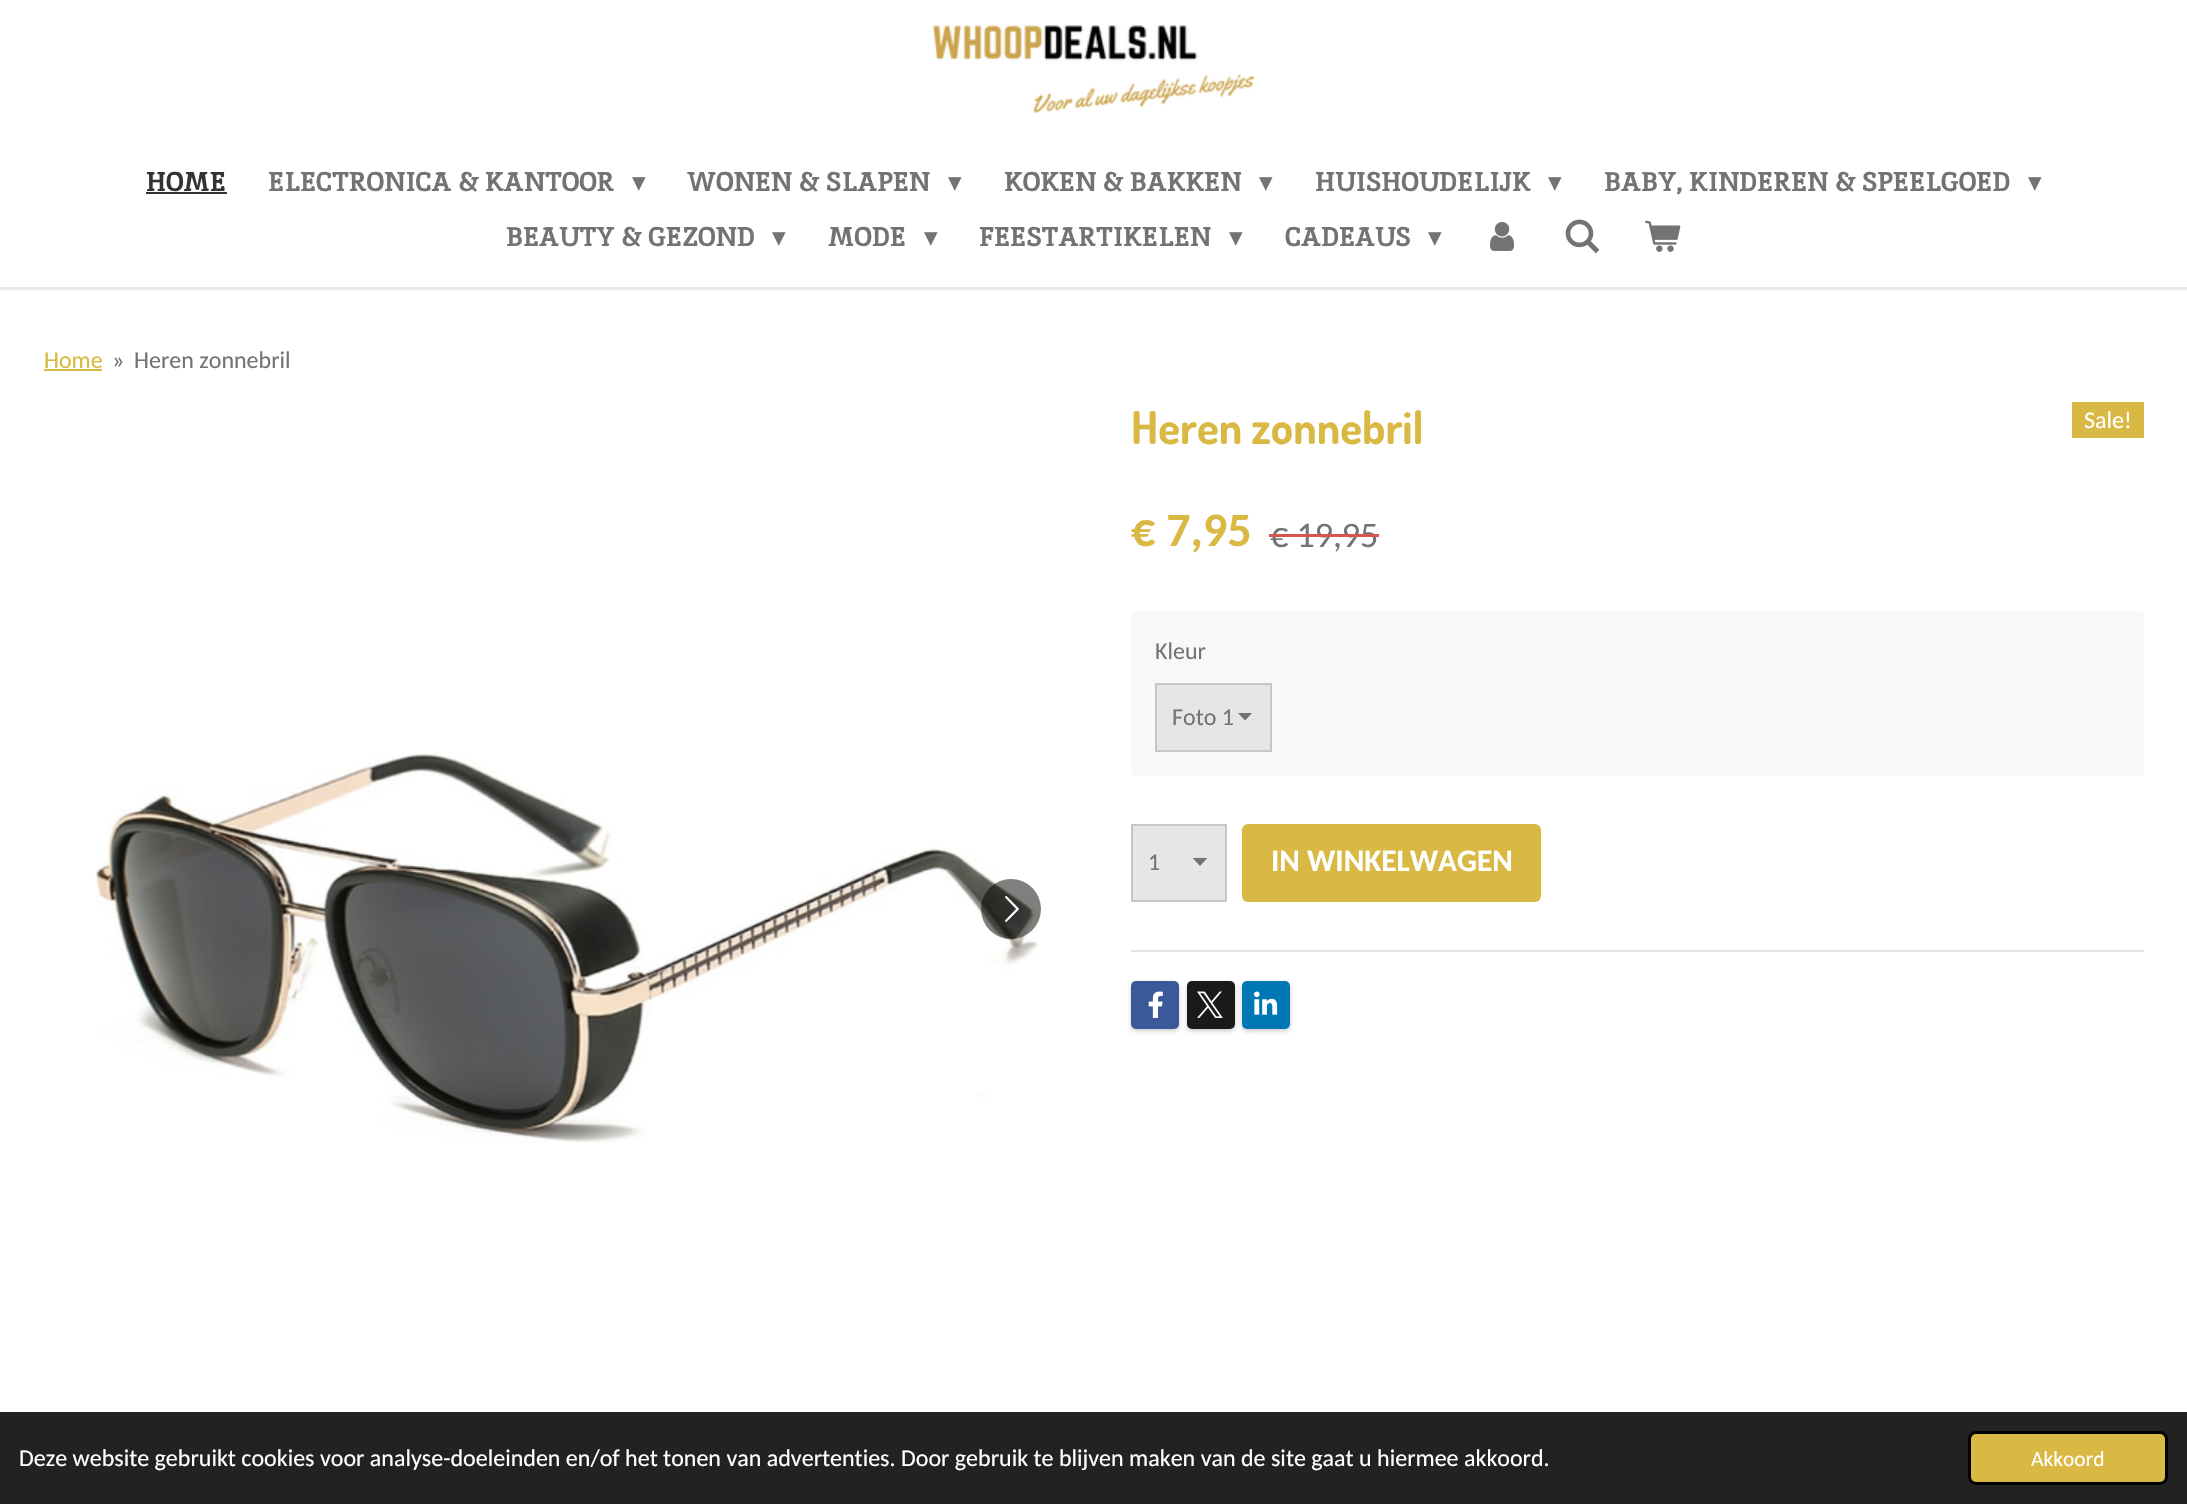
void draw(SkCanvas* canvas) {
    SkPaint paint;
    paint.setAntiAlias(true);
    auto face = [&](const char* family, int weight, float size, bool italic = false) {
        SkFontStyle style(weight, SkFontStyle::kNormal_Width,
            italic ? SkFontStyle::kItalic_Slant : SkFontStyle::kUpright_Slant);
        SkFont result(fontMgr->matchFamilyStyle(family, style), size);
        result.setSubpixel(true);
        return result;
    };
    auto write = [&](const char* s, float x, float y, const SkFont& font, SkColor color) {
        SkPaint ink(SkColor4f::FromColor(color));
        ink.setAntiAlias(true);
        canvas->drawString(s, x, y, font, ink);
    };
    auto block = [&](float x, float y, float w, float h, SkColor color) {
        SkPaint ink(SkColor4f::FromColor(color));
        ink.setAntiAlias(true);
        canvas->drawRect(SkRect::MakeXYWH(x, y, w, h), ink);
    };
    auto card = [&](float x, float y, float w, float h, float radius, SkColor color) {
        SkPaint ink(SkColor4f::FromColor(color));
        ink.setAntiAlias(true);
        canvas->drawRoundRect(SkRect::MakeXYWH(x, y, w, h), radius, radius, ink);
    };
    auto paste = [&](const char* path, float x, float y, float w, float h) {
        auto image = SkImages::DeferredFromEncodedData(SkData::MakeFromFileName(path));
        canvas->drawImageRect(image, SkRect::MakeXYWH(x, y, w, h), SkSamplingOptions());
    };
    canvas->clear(SK_ColorWHITE);
    paste("pic1.png", 932, 25, 323, 88);
    auto kFont1 = face("Inika", 700, 27);
    write("HOME", 146, 191, kFont1, SkColorSetRGB(51, 51, 51));
    block(146, 192, 81, 2, SkColorSetRGB(51, 51, 51));
    write("ELECTRONICA & KANTOOR", 268, 191, kFont1, SkColorSetRGB(115, 115, 115));
    auto kFont2 = face("DejaVu Sans", 400, 27);
    write("▾", 632, 191, kFont2, SkColorSetRGB(115, 115, 115));
    write("WONEN & SLAPEN", 687, 191, kFont1, SkColorSetRGB(115, 115, 115));
    write("▾", 948, 191, kFont2, SkColorSetRGB(115, 115, 115));
    write("KOKEN & BAKKEN", 1004, 191, kFont1, SkColorSetRGB(115, 115, 115));
    write("▾", 1259, 191, kFont2, SkColorSetRGB(115, 115, 115));
    write("HUISHOUDELIJK", 1315, 191, kFont1, SkColorSetRGB(115, 115, 115));
    write("▾", 1548, 191, kFont2, SkColorSetRGB(115, 115, 115));
    write("BABY, KINDEREN & SPEELGOED", 1604, 191, kFont1, SkColorSetRGB(115, 115, 115));
    write("▾", 2028, 191, kFont2, SkColorSetRGB(115, 115, 115));
    write("BEAUTY & GEZOND", 506, 246, kFont1, SkColorSetRGB(115, 115, 115));
    write("▾", 772, 246, kFont2, SkColorSetRGB(115, 115, 115));
    write("MODE", 828, 246, kFont1, SkColorSetRGB(115, 115, 115));
    write("▾", 924, 246, kFont2, SkColorSetRGB(115, 115, 115));
    write("FEESTARTIKELEN", 979, 246, kFont1, SkColorSetRGB(115, 115, 115));
    write("▾", 1229, 246, kFont2, SkColorSetRGB(115, 115, 115));
    write("CADEAUS", 1285, 246, kFont1, SkColorSetRGB(115, 115, 115));
    write("▾", 1428, 246, kFont2, SkColorSetRGB(115, 115, 115));
    paste("pic2.png", 1490, 222, 25, 29);
    paste("pic3.png", 1565, 219, 35, 35);
    paste("pic4.png", 1645, 220, 36, 32);
    block(0, 287, 2187, 3, SkColorSetRGB(234, 234, 234));
    auto kFont3 = face("Carlito", 400, 24);
    write("Home", 44, 368, kFont3, SkColorSetRGB(218, 184, 68));
    block(44, 369, 58, 2, SkColorSetRGB(218, 184, 68));
    write("»", 112, 368, kFont3, SkColorSetRGB(115, 115, 115));
    write("Heren zonnebril", 134, 368, kFont3, SkColorSetRGB(115, 115, 115));
    auto kFont4 = face("Dosis", 700, 45);
    write("Heren zonnebril", 1131, 444, kFont4, SkColorSetRGB(218, 184, 68));
    block(2072, 402, 72, 36, SkColorSetRGB(218, 184, 68));
    write("Sale!", 2084, 428, kFont3, SK_ColorWHITE);
    auto kFont5 = face("Carlito", 700, 48);
    write("€ 7,95", 1131, 546, kFont5, SkColorSetRGB(218, 184, 68));
    auto kFont6 = face("Carlito", 400, 36);
    write("€ 19,95", 1270, 547, kFont6, SkColorSetRGB(115, 115, 115));
    block(1269, 534, 110, 3, SkColorSetRGB(217, 83, 79));
    card(1131, 611, 1013, 165, 5, SkColorSetRGB(248, 248, 248));
    write("Kleur", 1155, 659, kFont3, SkColorSetRGB(115, 115, 115));
    block(1157, 685, 113, 65, SkColorSetRGB(230, 230, 230));
    canvas->save();
    canvas->clipRect(SkRect::MakeXYWH(1238, 713, 16, 7));
    paint.setColor(SkColorSetRGB(115, 115, 115));
    canvas->drawPath(SkPathBuilder().moveTo(1245, 720.5f).lineTo(1237.5f, 712.5f).lineTo(1252.5f, 712.5f).close().detach(), paint);
    canvas->restore();
    paint.setStyle(SkPaint::kStroke_Style);
    paint.setStrokeWidth(2);
    paint.setColor(SkColorSetRGB(198, 198, 198));
    canvas->drawRect(SkRect::MakeXYWH(1156, 684, 115, 67), paint);
    write("Foto 1", 1172, 725, kFont3, SkColorSetRGB(115, 115, 115));
    block(1133, 826, 92, 74, SkColorSetRGB(230, 230, 230));
    paint.setStyle(SkPaint::kFill_Style);
    paint.setColor(SkColorSetRGB(115, 115, 115));
    canvas->drawPath(SkPathBuilder().moveTo(1200, 866).lineTo(1192.5f, 858).lineTo(1207.5f, 858).close().detach(), paint);
    paint.setStyle(SkPaint::kStroke_Style);
    paint.setColor(SkColorSetRGB(198, 198, 198));
    canvas->drawRect(SkRect::MakeXYWH(1132, 825, 94, 76), paint);
    write("1", 1148, 870, kFont3, SkColorSetRGB(115, 115, 115));
    card(1242, 824, 299, 78, 6, SkColorSetRGB(218, 184, 68));
    auto kFont7 = face("Carlito", 700, 31.25f);
    write("IN WINKELWAGEN", 1271, 871, kFont7, SK_ColorWHITE);
    block(1131, 950, 1013, 2, SkColorSetRGB(227, 227, 227));
    paint.setStyle(SkPaint::kFill_Style);
    paint.setColor(SkColorSetARGB(51, 0, 0, 0));
    paint.setMaskFilter(SkMaskFilter::MakeBlur(kNormal_SkBlurStyle, 2));
    canvas->drawRoundRect(SkRect::MakeXYWH(1131, 983, 48, 48), 5, 5, paint);
    paint.setMaskFilter(nullptr);
    card(1131, 981, 48, 48, 5, SkColorSetRGB(59, 89, 152));
    paste("pic5.png", 1148, 991, 15, 27);
    paint.setMaskFilter(SkMaskFilter::MakeBlur(kNormal_SkBlurStyle, 2));
    canvas->drawRoundRect(SkRect::MakeXYWH(1187, 983, 48, 48), 5, 5, paint);
    paint.setMaskFilter(nullptr);
    card(1187, 981, 48, 48, 5, SkColorSetRGB(26, 26, 26));
    paste("pic6.png", 1197, 991, 26, 27);
    paint.setMaskFilter(SkMaskFilter::MakeBlur(kNormal_SkBlurStyle, 2));
    canvas->drawRoundRect(SkRect::MakeXYWH(1242, 983, 48, 48), 5, 5, paint);
    paint.setMaskFilter(nullptr);
    card(1242, 981, 48, 48, 5, SkColorSetRGB(0, 119, 181));
    paste("pic7.png", 1254, 991, 24, 24);
    paste("pic8.png", 95, 753, 944, 390);
    paint.setColor(SkColorSetARGB(128, 0, 0, 0));
    canvas->drawCircle(1011, 909, 30, paint);
    paste("pic9.png", 1005, 896, 14, 26);
    block(0, 1412, 2187, 92, SkColorSetRGB(34, 34, 34));
    write("Deze website gebruikt cookies voor analyse-doeleinden en/of het tonen van advertenties. Door gebruik te blijven maken van de site gaat u hiermee akkoord.", 19, 1466, kFont3, SK_ColorWHITE);
    paint.setColor(SkColorSetRGB(218, 184, 68));
    canvas->drawRoundRect(SkRect::MakeXYWH(1969.5f, 1432.5f, 197, 51), 6.5f, 6.5f, paint);
    paint.setStyle(SkPaint::kStroke_Style);
    paint.setStrokeWidth(3);
    paint.setColor(SK_ColorBLACK);
    canvas->drawRoundRect(SkRect::MakeXYWH(1969.5f, 1432.5f, 197, 51), 6.5f, 6.5f, paint);
    auto kFont8 = face("Carlito", 400, 21.5f);
    write("Akkoord", 2031, 1466, kFont8, SK_ColorWHITE);
}
